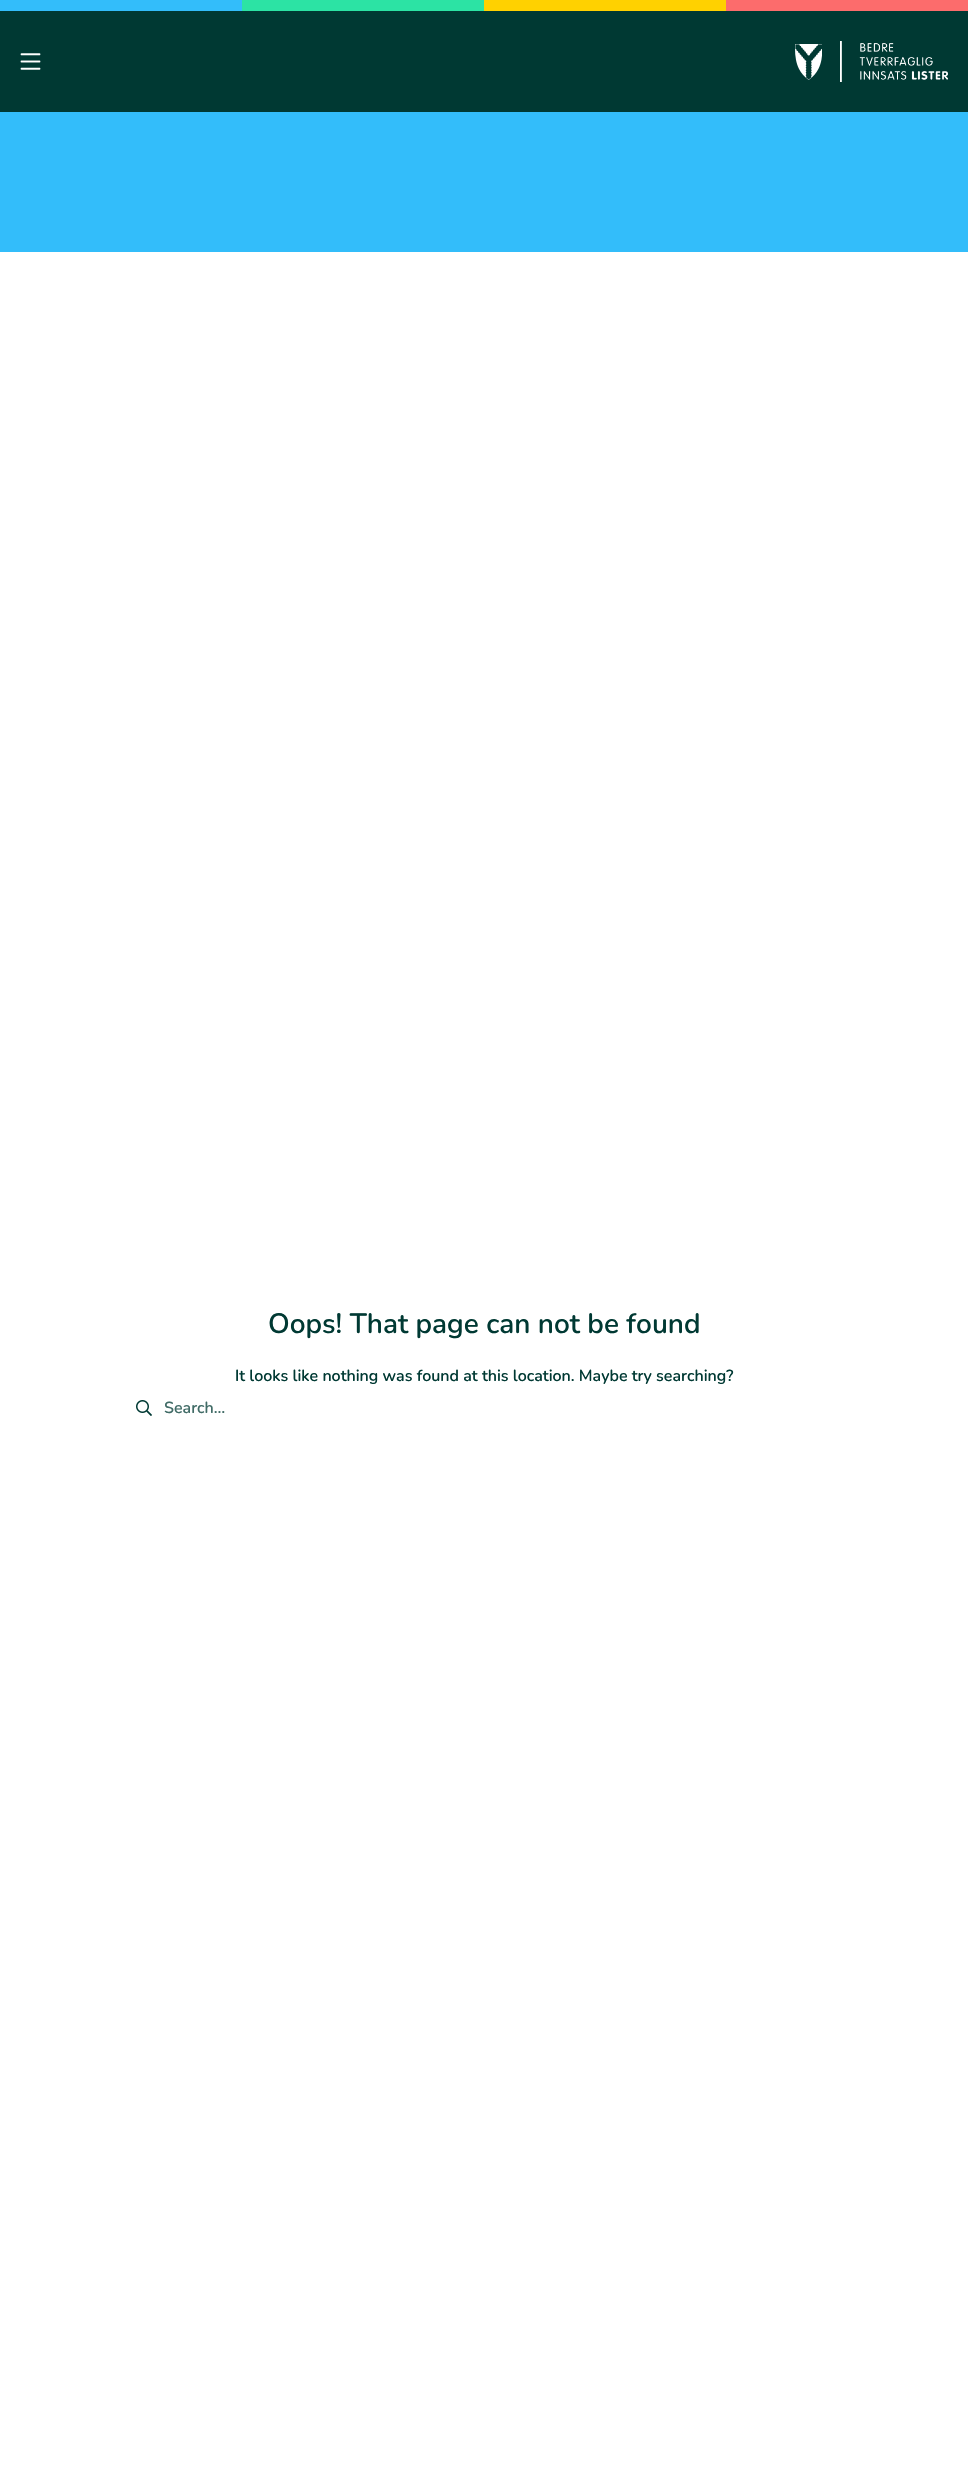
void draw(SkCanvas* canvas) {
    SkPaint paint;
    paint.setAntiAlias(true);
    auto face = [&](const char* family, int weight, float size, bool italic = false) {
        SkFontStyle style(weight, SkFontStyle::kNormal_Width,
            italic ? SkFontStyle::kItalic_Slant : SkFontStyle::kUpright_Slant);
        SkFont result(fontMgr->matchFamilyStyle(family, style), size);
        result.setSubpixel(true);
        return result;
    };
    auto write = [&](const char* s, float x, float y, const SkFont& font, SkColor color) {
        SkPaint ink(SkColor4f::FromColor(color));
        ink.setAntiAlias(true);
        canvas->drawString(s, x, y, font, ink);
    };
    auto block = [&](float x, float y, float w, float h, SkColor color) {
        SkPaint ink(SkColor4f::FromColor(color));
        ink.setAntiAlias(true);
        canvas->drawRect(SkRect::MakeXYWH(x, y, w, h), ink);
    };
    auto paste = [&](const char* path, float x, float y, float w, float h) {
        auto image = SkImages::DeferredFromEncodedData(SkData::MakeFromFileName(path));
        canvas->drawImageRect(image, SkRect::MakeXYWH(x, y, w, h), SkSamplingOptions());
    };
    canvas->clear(SK_ColorWHITE);
    block(0, 0, 242, 11, SkColorSetRGB(51, 189, 250));
    block(242, 0, 242, 11, SkColorSetRGB(44, 227, 164));
    block(484, 0, 242, 11, SkColorSetRGB(255, 209, 0));
    block(726, 0, 242, 11, SkColorSetRGB(252, 108, 108));
    block(0, 11, 968, 101, SkColorSetRGB(0, 57, 51));
    paste("pic1.png", 20, 53, 21, 17);
    paste("pic2.png", 795, 44, 27, 36);
    paste("pic3.png", 840, 41, 108, 41);
    block(0, 112, 968, 140, SkColorSetRGB(51, 189, 250));
    auto kFont1 = face("Nunito", 600, 28);
    write("Oops! That page can not be found", 268, 1333, kFont1, SkColorSetRGB(0, 57, 51));
    auto kFont2 = face("Nunito", 600, 16);
    write("It looks like nothing was found at this location. Maybe try searching?", 235, 1381, kFont2, SkColorSetRGB(0, 57, 51));
    paste("pic4.png", 136, 1400, 16, 16);
    write("Search…", 164, 1413, kFont2, SkColorSetRGB(64, 107, 102));
}
